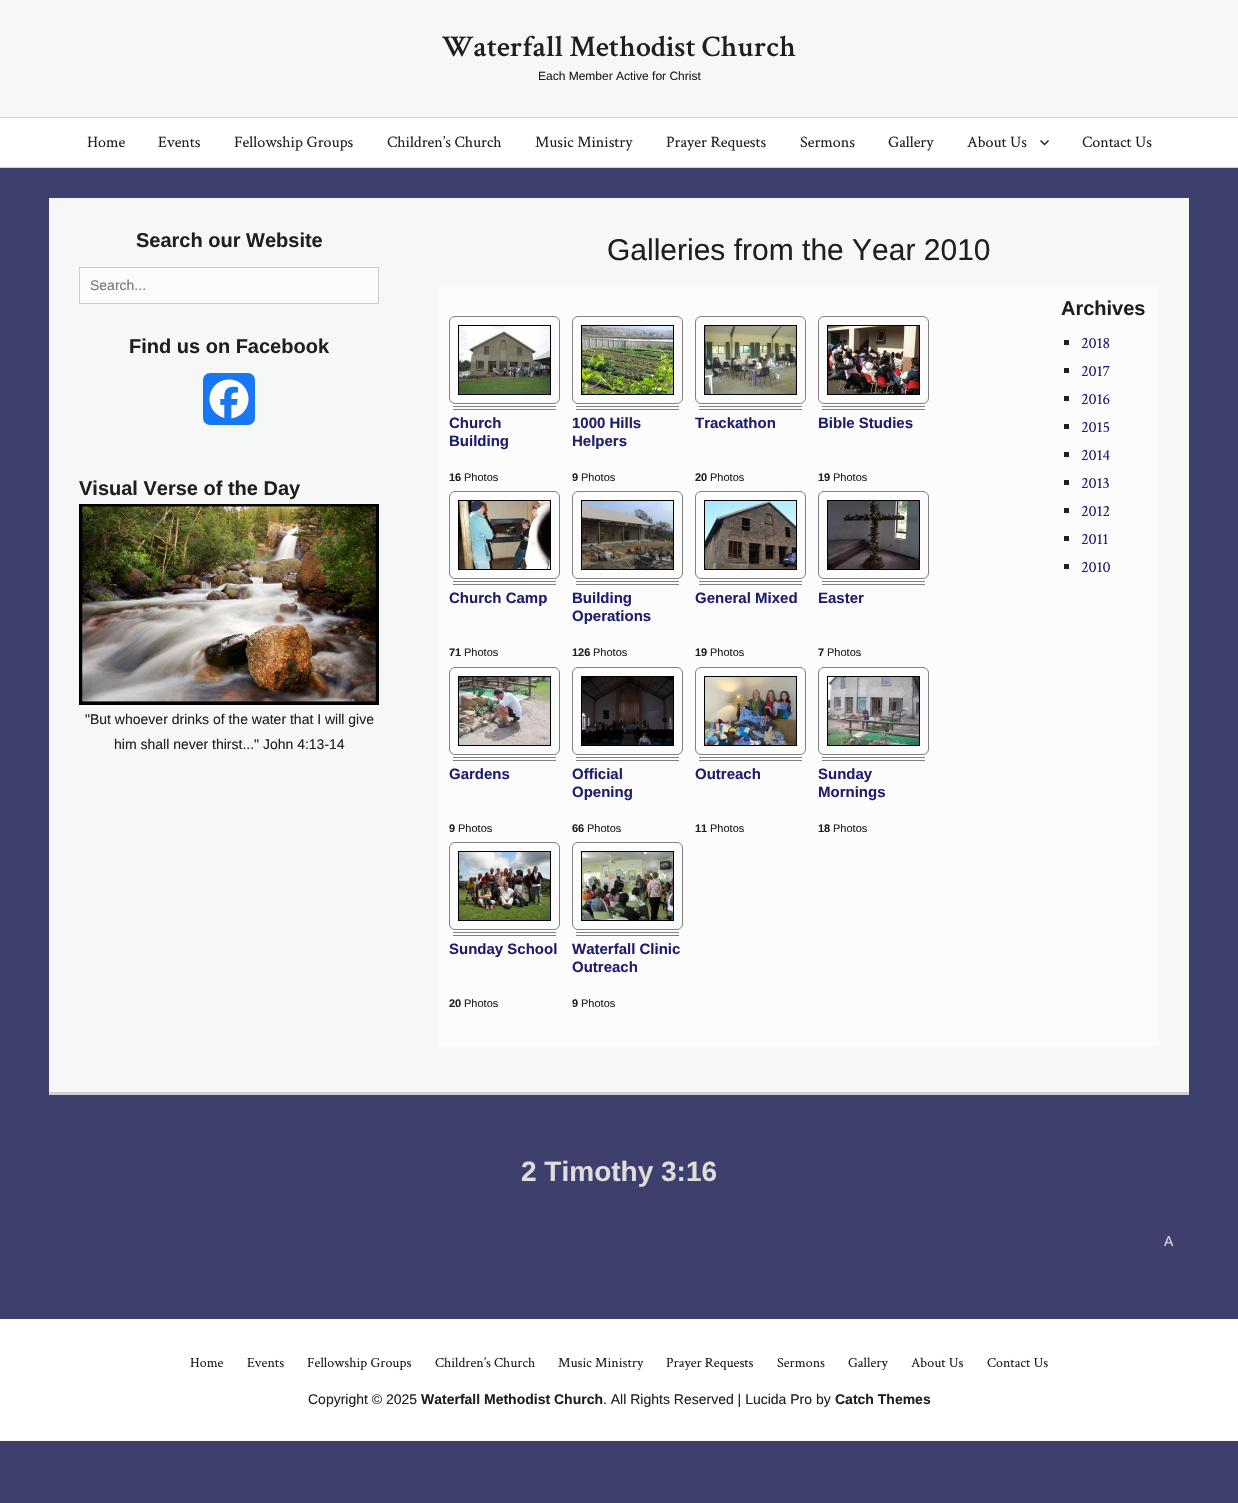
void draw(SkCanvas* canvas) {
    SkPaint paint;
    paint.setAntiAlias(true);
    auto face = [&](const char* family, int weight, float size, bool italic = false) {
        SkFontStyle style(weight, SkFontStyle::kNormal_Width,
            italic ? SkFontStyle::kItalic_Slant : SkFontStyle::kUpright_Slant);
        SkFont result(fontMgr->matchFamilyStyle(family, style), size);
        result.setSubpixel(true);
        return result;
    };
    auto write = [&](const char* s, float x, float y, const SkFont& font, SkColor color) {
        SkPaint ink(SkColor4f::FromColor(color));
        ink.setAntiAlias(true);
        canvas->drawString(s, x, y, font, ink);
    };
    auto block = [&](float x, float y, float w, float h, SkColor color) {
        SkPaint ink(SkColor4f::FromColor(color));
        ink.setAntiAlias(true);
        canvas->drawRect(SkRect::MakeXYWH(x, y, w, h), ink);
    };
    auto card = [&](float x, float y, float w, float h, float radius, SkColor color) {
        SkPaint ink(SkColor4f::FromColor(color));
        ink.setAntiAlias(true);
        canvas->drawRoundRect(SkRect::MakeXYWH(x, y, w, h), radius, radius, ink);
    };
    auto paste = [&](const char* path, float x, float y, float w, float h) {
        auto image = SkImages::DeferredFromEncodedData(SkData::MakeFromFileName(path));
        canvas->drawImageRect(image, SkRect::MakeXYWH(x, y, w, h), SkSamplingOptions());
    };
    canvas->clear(SkColorSetRGB(63, 63, 109));
    block(0, 0, 1238, 117, SkColorSetRGB(247, 247, 247));
    auto kFont1 = face("Crimson Text", 600, 30);
    write("Waterfall Methodist Church", 442, 56, kFont1, SkColorSetRGB(31, 31, 31));
    auto kFont2 = face("Liberation Sans", 400, 12);
    write("Each Member Active for Christ", 538, 80, kFont2, SkColorSetRGB(31, 31, 31));
    block(0, 118, 1238, 49, SK_ColorWHITE);
    block(0, 117, 1238, 1, SkColorSetRGB(209, 209, 209));
    block(0, 167, 1238, 1, SkColorSetRGB(209, 209, 209));
    auto kFont3 = face("Crimson Text", 400, 16);
    write("Home", 87, 147, kFont3, SkColorSetRGB(31, 31, 31));
    write("Events", 158, 147, kFont3, SkColorSetRGB(31, 31, 31));
    write("Fellowship Groups", 234, 147, kFont3, SkColorSetRGB(31, 31, 31));
    write("Children’s Church", 387, 147, kFont3, SkColorSetRGB(31, 31, 31));
    write("Music Ministry", 535, 147, kFont3, SkColorSetRGB(31, 31, 31));
    write("Prayer Requests", 666, 147, kFont3, SkColorSetRGB(31, 31, 31));
    write("Sermons", 800, 147, kFont3, SkColorSetRGB(31, 31, 31));
    write("Gallery", 888, 147, kFont3, SkColorSetRGB(31, 31, 31));
    write("About Us", 967, 147, kFont3, SkColorSetRGB(31, 31, 31));
    paste("pic1.png", 1040, 140, 9, 6);
    write("Contact Us", 1082, 147, kFont3, SkColorSetRGB(31, 31, 31));
    block(49, 198, 1140, 894, SkColorSetRGB(246, 247, 247));
    block(49, 1092, 1140, 3, SkColorSetRGB(207, 207, 207));
    auto kFont4 = face("Liberation Sans", 700, 20);
    write("Search our Website", 136, 247, kFont4, SkColorSetRGB(31, 31, 31));
    paint.setColor(SkColorSetRGB(251, 251, 251));
    canvas->drawRect(SkRect::MakeXYWH(79.5f, 267.5f, 299, 36), paint);
    paint.setStyle(SkPaint::kStroke_Style);
    paint.setStrokeWidth(1);
    paint.setColor(SkColorSetRGB(204, 204, 204));
    canvas->drawRect(SkRect::MakeXYWH(79.5f, 267.5f, 299, 36), paint);
    auto kFont5 = face("Liberation Sans", 400, 14);
    write("Search...", 90, 290, kFont5, SkColorSetRGB(117, 117, 117));
    write("Find us on Facebook", 129, 353, kFont4, SkColorSetRGB(31, 31, 31));
    card(203, 373, 52, 52, 7, SkColorSetRGB(24, 119, 242));
    paste("pic2.png", 209, 379, 40, 40);
    write("Visual Verse of the Day", 79, 495, kFont4, SkColorSetRGB(31, 31, 31));
    paste("pic3.png", 79, 504, 300, 201);
    write("\"But whoever drinks of the water that I will give", 85, 724, kFont5, SkColorSetRGB(31, 31, 31));
    write("him shall never thirst...\" John 4:13-14", 114, 749, kFont5, SkColorSetRGB(31, 31, 31));
    auto kFont6 = face("Liberation Sans", 400, 30);
    write("Galleries from the Year 2010", 607, 260, kFont6, SkColorSetRGB(31, 31, 31));
    block(439, 286, 720, 761, SkColorSetRGB(252, 252, 252));
    paint.setColor(SkColorSetRGB(128, 128, 128));
    canvas->drawRoundRect(SkRect::MakeXYWH(449.5f, 316.5f, 110, 87), 5.5f, 5.5f, paint);
    paint.setColor(SK_ColorBLACK);
    canvas->drawRect(SkRect::MakeXYWH(458.5f, 325.5f, 92, 69), paint);
    paste("pic4.png", 459, 326, 91, 68);
    block(453, 406, 103, 1, SkColorSetRGB(128, 128, 128));
    block(453, 409, 103, 1, SkColorSetRGB(128, 128, 128));
    auto kFont7 = face("Liberation Sans", 700, 15);
    write("Church", 449, 428, kFont7, SkColorSetRGB(31, 29, 109));
    write("Building", 449, 446, kFont7, SkColorSetRGB(31, 29, 109));
    auto kFont8 = face("Liberation Sans", 700, 11);
    write("16", 449, 481, kFont8, SkColorSetRGB(31, 31, 31));
    auto kFont9 = face("Liberation Sans", 400, 11);
    write("Photos", 464, 481, kFont9, SkColorSetRGB(31, 31, 31));
    paint.setColor(SkColorSetRGB(128, 128, 128));
    canvas->drawRoundRect(SkRect::MakeXYWH(572.5f, 316.5f, 110, 87), 5.5f, 5.5f, paint);
    paint.setColor(SK_ColorBLACK);
    canvas->drawRect(SkRect::MakeXYWH(581.5f, 325.5f, 92, 69), paint);
    paste("pic5.png", 582, 326, 91, 68);
    block(576, 406, 103, 1, SkColorSetRGB(128, 128, 128));
    block(576, 409, 103, 1, SkColorSetRGB(128, 128, 128));
    write("1000 Hills", 572, 428, kFont7, SkColorSetRGB(31, 29, 109));
    write("Helpers", 572, 446, kFont7, SkColorSetRGB(31, 29, 109));
    write("9", 572, 481, kFont8, SkColorSetRGB(31, 31, 31));
    write("Photos", 581, 481, kFont9, SkColorSetRGB(31, 31, 31));
    paint.setColor(SkColorSetRGB(128, 128, 128));
    canvas->drawRoundRect(SkRect::MakeXYWH(695.5f, 316.5f, 110, 87), 5.5f, 5.5f, paint);
    paint.setColor(SK_ColorBLACK);
    canvas->drawRect(SkRect::MakeXYWH(704.5f, 325.5f, 92, 69), paint);
    paste("pic6.png", 705, 326, 91, 68);
    block(699, 406, 103, 1, SkColorSetRGB(128, 128, 128));
    block(699, 409, 103, 1, SkColorSetRGB(128, 128, 128));
    write("Trackathon", 695, 428, kFont7, SkColorSetRGB(31, 29, 109));
    write("20", 695, 481, kFont8, SkColorSetRGB(31, 31, 31));
    write("Photos", 710, 481, kFont9, SkColorSetRGB(31, 31, 31));
    paint.setColor(SkColorSetRGB(128, 128, 128));
    canvas->drawRoundRect(SkRect::MakeXYWH(818.5f, 316.5f, 110, 87), 5.5f, 5.5f, paint);
    paint.setColor(SK_ColorBLACK);
    canvas->drawRect(SkRect::MakeXYWH(827.5f, 325.5f, 92, 69), paint);
    paste("pic7.png", 828, 326, 91, 68);
    block(822, 406, 103, 1, SkColorSetRGB(128, 128, 128));
    block(822, 409, 103, 1, SkColorSetRGB(128, 128, 128));
    write("Bible Studies", 818, 428, kFont7, SkColorSetRGB(31, 29, 109));
    write("19", 818, 481, kFont8, SkColorSetRGB(31, 31, 31));
    write("Photos", 833, 481, kFont9, SkColorSetRGB(31, 31, 31));
    paint.setColor(SkColorSetRGB(128, 128, 128));
    canvas->drawRoundRect(SkRect::MakeXYWH(449.5f, 491.5f, 110, 87), 5.5f, 5.5f, paint);
    paint.setColor(SK_ColorBLACK);
    canvas->drawRect(SkRect::MakeXYWH(458.5f, 500.5f, 92, 69), paint);
    paste("pic8.png", 459, 501, 91, 68);
    block(453, 581, 103, 1, SkColorSetRGB(128, 128, 128));
    block(453, 584, 103, 1, SkColorSetRGB(128, 128, 128));
    write("Church Camp", 449, 603, kFont7, SkColorSetRGB(31, 29, 109));
    write("71", 449, 656, kFont8, SkColorSetRGB(31, 31, 31));
    write("Photos", 464, 656, kFont9, SkColorSetRGB(31, 31, 31));
    paint.setColor(SkColorSetRGB(128, 128, 128));
    canvas->drawRoundRect(SkRect::MakeXYWH(572.5f, 491.5f, 110, 87), 5.5f, 5.5f, paint);
    paint.setColor(SK_ColorBLACK);
    canvas->drawRect(SkRect::MakeXYWH(581.5f, 500.5f, 92, 69), paint);
    paste("pic9.png", 582, 501, 91, 68);
    block(576, 581, 103, 1, SkColorSetRGB(128, 128, 128));
    block(576, 584, 103, 1, SkColorSetRGB(128, 128, 128));
    write("Building", 572, 603, kFont7, SkColorSetRGB(31, 29, 109));
    write("Operations", 572, 621, kFont7, SkColorSetRGB(31, 29, 109));
    write("126", 572, 656, kFont8, SkColorSetRGB(31, 31, 31));
    write("Photos", 593, 656, kFont9, SkColorSetRGB(31, 31, 31));
    paint.setColor(SkColorSetRGB(128, 128, 128));
    canvas->drawRoundRect(SkRect::MakeXYWH(695.5f, 491.5f, 110, 87), 5.5f, 5.5f, paint);
    paint.setColor(SK_ColorBLACK);
    canvas->drawRect(SkRect::MakeXYWH(704.5f, 500.5f, 92, 69), paint);
    paste("pic10.png", 705, 501, 91, 68);
    block(699, 581, 103, 1, SkColorSetRGB(128, 128, 128));
    block(699, 584, 103, 1, SkColorSetRGB(128, 128, 128));
    write("General Mixed", 695, 603, kFont7, SkColorSetRGB(31, 29, 109));
    write("19", 695, 656, kFont8, SkColorSetRGB(31, 31, 31));
    write("Photos", 710, 656, kFont9, SkColorSetRGB(31, 31, 31));
    paint.setColor(SkColorSetRGB(128, 128, 128));
    canvas->drawRoundRect(SkRect::MakeXYWH(818.5f, 491.5f, 110, 87), 5.5f, 5.5f, paint);
    paint.setColor(SK_ColorBLACK);
    canvas->drawRect(SkRect::MakeXYWH(827.5f, 500.5f, 92, 69), paint);
    paste("pic11.png", 828, 501, 91, 68);
    block(822, 581, 103, 1, SkColorSetRGB(128, 128, 128));
    block(822, 584, 103, 1, SkColorSetRGB(128, 128, 128));
    write("Easter", 818, 603, kFont7, SkColorSetRGB(31, 29, 109));
    write("7", 818, 656, kFont8, SkColorSetRGB(31, 31, 31));
    write("Photos", 827, 656, kFont9, SkColorSetRGB(31, 31, 31));
    paint.setColor(SkColorSetRGB(128, 128, 128));
    canvas->drawRoundRect(SkRect::MakeXYWH(449.5f, 667.5f, 110, 87), 5.5f, 5.5f, paint);
    paint.setColor(SK_ColorBLACK);
    canvas->drawRect(SkRect::MakeXYWH(458.5f, 676.5f, 92, 69), paint);
    paste("pic12.png", 459, 677, 91, 68);
    block(453, 757, 103, 1, SkColorSetRGB(128, 128, 128));
    block(453, 760, 103, 1, SkColorSetRGB(128, 128, 128));
    write("Gardens", 449, 779, kFont7, SkColorSetRGB(31, 29, 109));
    write("9", 449, 832, kFont8, SkColorSetRGB(31, 31, 31));
    write("Photos", 458, 832, kFont9, SkColorSetRGB(31, 31, 31));
    paint.setColor(SkColorSetRGB(128, 128, 128));
    canvas->drawRoundRect(SkRect::MakeXYWH(572.5f, 667.5f, 110, 87), 5.5f, 5.5f, paint);
    paint.setColor(SK_ColorBLACK);
    canvas->drawRect(SkRect::MakeXYWH(581.5f, 676.5f, 92, 69), paint);
    paste("pic13.png", 582, 677, 91, 68);
    block(576, 757, 103, 1, SkColorSetRGB(128, 128, 128));
    block(576, 760, 103, 1, SkColorSetRGB(128, 128, 128));
    write("Official", 572, 779, kFont7, SkColorSetRGB(31, 29, 109));
    write("Opening", 572, 797, kFont7, SkColorSetRGB(31, 29, 109));
    write("66", 572, 832, kFont8, SkColorSetRGB(31, 31, 31));
    write("Photos", 587, 832, kFont9, SkColorSetRGB(31, 31, 31));
    paint.setColor(SkColorSetRGB(128, 128, 128));
    canvas->drawRoundRect(SkRect::MakeXYWH(695.5f, 667.5f, 110, 87), 5.5f, 5.5f, paint);
    paint.setColor(SK_ColorBLACK);
    canvas->drawRect(SkRect::MakeXYWH(704.5f, 676.5f, 92, 69), paint);
    paste("pic14.png", 705, 677, 91, 68);
    block(699, 757, 103, 1, SkColorSetRGB(128, 128, 128));
    block(699, 760, 103, 1, SkColorSetRGB(128, 128, 128));
    write("Outreach", 695, 779, kFont7, SkColorSetRGB(31, 29, 109));
    write("11", 695, 832, kFont8, SkColorSetRGB(31, 31, 31));
    write("Photos", 710, 832, kFont9, SkColorSetRGB(31, 31, 31));
    paint.setColor(SkColorSetRGB(128, 128, 128));
    canvas->drawRoundRect(SkRect::MakeXYWH(818.5f, 667.5f, 110, 87), 5.5f, 5.5f, paint);
    paint.setColor(SK_ColorBLACK);
    canvas->drawRect(SkRect::MakeXYWH(827.5f, 676.5f, 92, 69), paint);
    paste("pic15.png", 828, 677, 91, 68);
    block(822, 757, 103, 1, SkColorSetRGB(128, 128, 128));
    block(822, 760, 103, 1, SkColorSetRGB(128, 128, 128));
    write("Sunday", 818, 779, kFont7, SkColorSetRGB(31, 29, 109));
    write("Mornings", 818, 797, kFont7, SkColorSetRGB(31, 29, 109));
    write("18", 818, 832, kFont8, SkColorSetRGB(31, 31, 31));
    write("Photos", 833, 832, kFont9, SkColorSetRGB(31, 31, 31));
    paint.setColor(SkColorSetRGB(128, 128, 128));
    canvas->drawRoundRect(SkRect::MakeXYWH(449.5f, 842.5f, 110, 87), 5.5f, 5.5f, paint);
    paint.setColor(SK_ColorBLACK);
    canvas->drawRect(SkRect::MakeXYWH(458.5f, 851.5f, 92, 69), paint);
    paste("pic16.png", 459, 852, 91, 68);
    block(453, 932, 103, 1, SkColorSetRGB(128, 128, 128));
    block(453, 935, 103, 1, SkColorSetRGB(128, 128, 128));
    write("Sunday School", 449, 954, kFont7, SkColorSetRGB(31, 29, 109));
    write("20", 449, 1007, kFont8, SkColorSetRGB(31, 31, 31));
    write("Photos", 464, 1007, kFont9, SkColorSetRGB(31, 31, 31));
    paint.setColor(SkColorSetRGB(128, 128, 128));
    canvas->drawRoundRect(SkRect::MakeXYWH(572.5f, 842.5f, 110, 87), 5.5f, 5.5f, paint);
    paint.setColor(SK_ColorBLACK);
    canvas->drawRect(SkRect::MakeXYWH(581.5f, 851.5f, 92, 69), paint);
    paste("pic17.png", 582, 852, 91, 68);
    block(576, 932, 103, 1, SkColorSetRGB(128, 128, 128));
    block(576, 935, 103, 1, SkColorSetRGB(128, 128, 128));
    write("Waterfall Clinic", 572, 954, kFont7, SkColorSetRGB(31, 29, 109));
    write("Outreach", 572, 972, kFont7, SkColorSetRGB(31, 29, 109));
    write("9", 572, 1007, kFont8, SkColorSetRGB(31, 31, 31));
    write("Photos", 581, 1007, kFont9, SkColorSetRGB(31, 31, 31));
    write("Archives", 1061, 315, kFont4, SkColorSetRGB(31, 31, 31));
    block(1064, 340, 5, 5, SkColorSetRGB(31, 31, 31));
    write("2018", 1081, 348, kFont3, SkColorSetRGB(31, 29, 109));
    block(1064, 368, 5, 5, SkColorSetRGB(31, 31, 31));
    write("2017", 1081, 376, kFont3, SkColorSetRGB(31, 29, 109));
    block(1064, 396, 5, 5, SkColorSetRGB(31, 31, 31));
    write("2016", 1081, 404, kFont3, SkColorSetRGB(31, 29, 109));
    block(1064, 424, 5, 5, SkColorSetRGB(31, 31, 31));
    write("2015", 1081, 432, kFont3, SkColorSetRGB(31, 29, 109));
    block(1064, 452, 5, 5, SkColorSetRGB(31, 31, 31));
    write("2014", 1081, 460, kFont3, SkColorSetRGB(31, 29, 109));
    block(1064, 480, 5, 5, SkColorSetRGB(31, 31, 31));
    write("2013", 1081, 488, kFont3, SkColorSetRGB(31, 29, 109));
    block(1064, 508, 5, 5, SkColorSetRGB(31, 31, 31));
    write("2012", 1081, 516, kFont3, SkColorSetRGB(31, 29, 109));
    block(1064, 536, 5, 5, SkColorSetRGB(31, 31, 31));
    write("2011", 1081, 544, kFont3, SkColorSetRGB(31, 29, 109));
    block(1064, 564, 5, 5, SkColorSetRGB(31, 31, 31));
    write("2010", 1081, 572, kFont3, SkColorSetRGB(31, 29, 109));
    auto kFont10 = face("Liberation Sans", 700, 28);
    write("2 Timothy 3:16", 521, 1181, kFont10, SkColorSetRGB(221, 221, 221));
    write("A", 1164, 1246, kFont5, SkColorSetRGB(221, 221, 221));
    block(0, 1319, 1238, 122, SK_ColorWHITE);
    auto kFont11 = face("Crimson Text", 400, 14);
    write("Home", 190, 1367, kFont11, SkColorSetRGB(31, 31, 31));
    write("Events", 247, 1367, kFont11, SkColorSetRGB(31, 31, 31));
    write("Fellowship Groups", 307, 1367, kFont11, SkColorSetRGB(31, 31, 31));
    write("Children’s Church", 435, 1367, kFont11, SkColorSetRGB(31, 31, 31));
    write("Music Ministry", 558, 1367, kFont11, SkColorSetRGB(31, 31, 31));
    write("Prayer Requests", 666, 1367, kFont11, SkColorSetRGB(31, 31, 31));
    write("Sermons", 777, 1367, kFont11, SkColorSetRGB(31, 31, 31));
    write("Gallery", 848, 1367, kFont11, SkColorSetRGB(31, 31, 31));
    write("About Us", 911, 1367, kFont11, SkColorSetRGB(31, 31, 31));
    write("Contact Us", 987, 1367, kFont11, SkColorSetRGB(31, 31, 31));
    write("Copyright © 2025", 308, 1404, kFont5, SkColorSetRGB(31, 31, 31));
    auto kFont12 = face("Liberation Sans", 700, 14);
    write("Waterfall Methodist Church", 421, 1404, kFont12, SkColorSetRGB(31, 31, 31));
    write(". All Rights Reserved | Lucida Pro by", 603, 1404, kFont5, SkColorSetRGB(31, 31, 31));
    write("Catch Themes", 835, 1404, kFont12, SkColorSetRGB(31, 31, 31));
}
